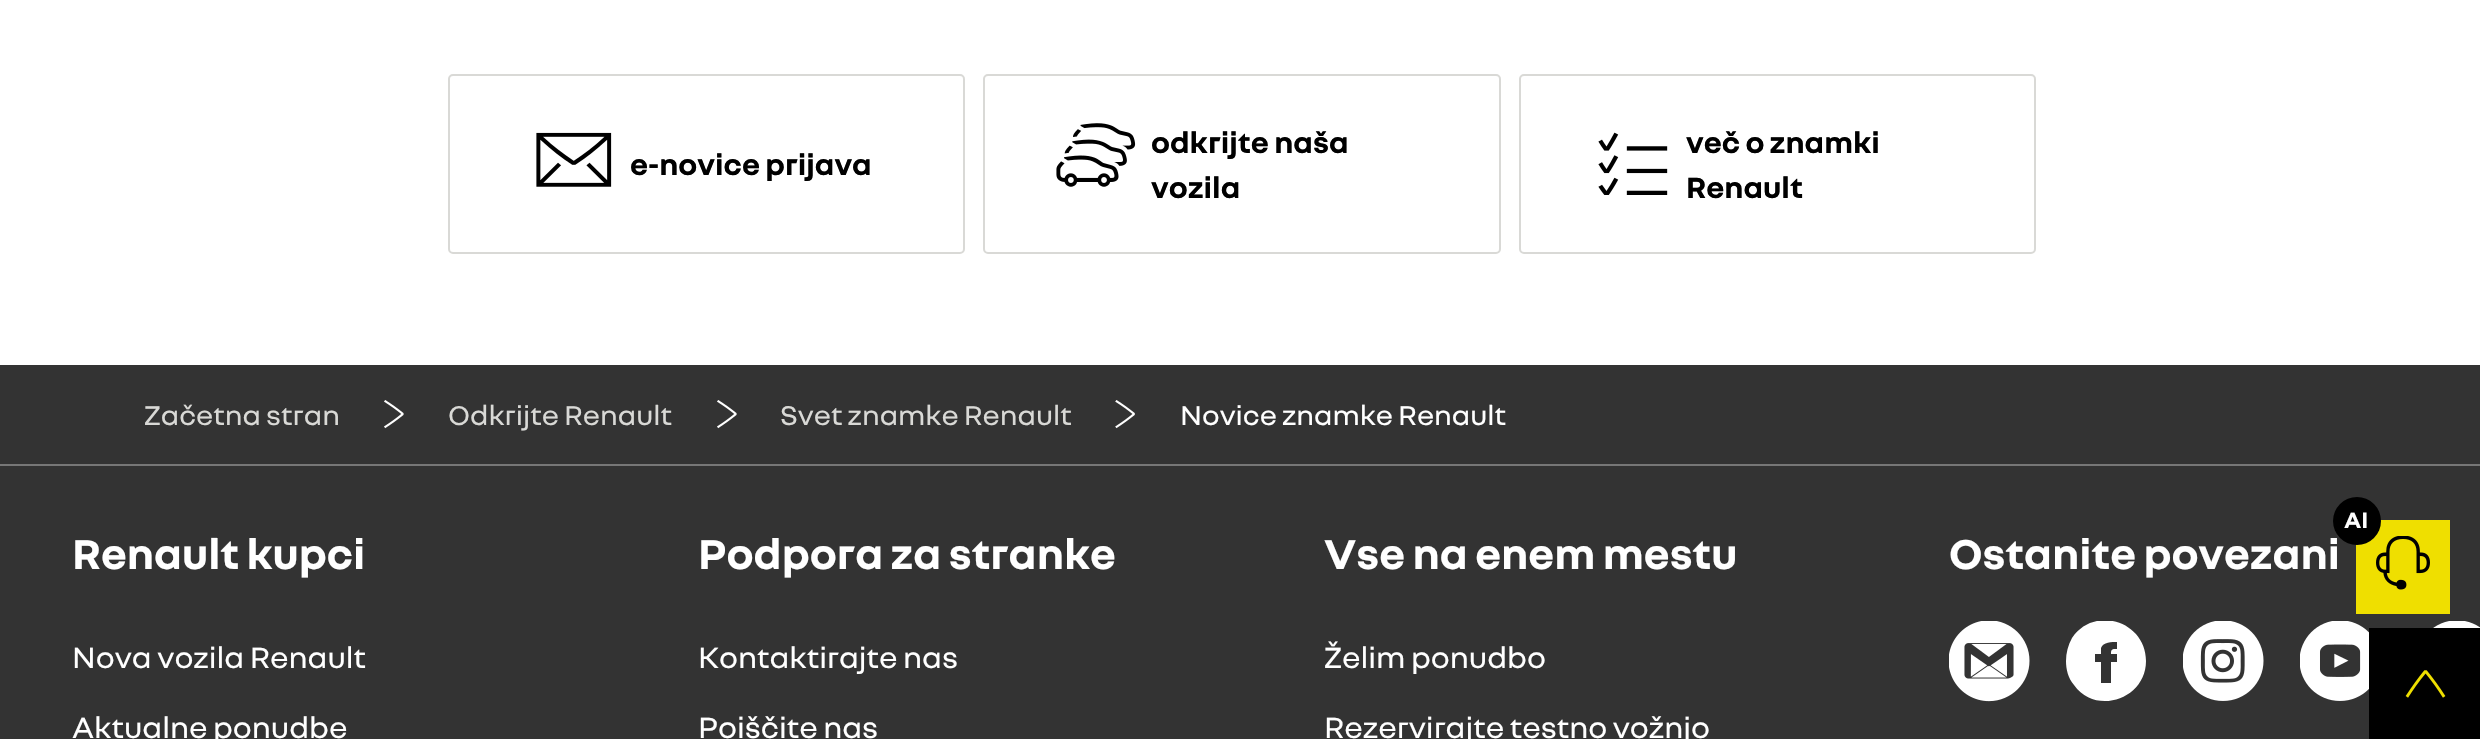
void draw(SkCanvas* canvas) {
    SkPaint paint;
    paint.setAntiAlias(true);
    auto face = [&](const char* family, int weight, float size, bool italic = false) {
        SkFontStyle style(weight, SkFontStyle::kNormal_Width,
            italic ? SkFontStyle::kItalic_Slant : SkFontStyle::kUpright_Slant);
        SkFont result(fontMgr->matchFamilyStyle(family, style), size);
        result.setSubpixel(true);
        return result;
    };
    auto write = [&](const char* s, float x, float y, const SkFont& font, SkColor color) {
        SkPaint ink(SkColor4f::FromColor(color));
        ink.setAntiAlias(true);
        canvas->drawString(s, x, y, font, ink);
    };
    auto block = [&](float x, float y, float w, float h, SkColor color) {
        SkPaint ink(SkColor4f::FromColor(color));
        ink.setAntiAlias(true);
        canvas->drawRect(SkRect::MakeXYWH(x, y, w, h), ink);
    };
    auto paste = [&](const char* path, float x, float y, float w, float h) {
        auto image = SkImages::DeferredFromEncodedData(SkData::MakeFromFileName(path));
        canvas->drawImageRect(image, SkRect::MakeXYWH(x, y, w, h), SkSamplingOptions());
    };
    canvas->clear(SK_ColorWHITE);
    paint.setStyle(SkPaint::kStroke_Style);
    paint.setStrokeWidth(2);
    paint.setColor(SkColorSetRGB(217, 217, 214));
    canvas->drawRoundRect(SkRect::MakeXYWH(449, 75, 515, 178), 4, 4, paint);
    paste("pic1.png", 536, 132, 76, 55);
    auto kFont1 = face("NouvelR", 700, 31.5f);
    write("e-novice prijava", 630, 175, kFont1, SK_ColorBLACK);
    canvas->drawRoundRect(SkRect::MakeXYWH(984, 75, 516, 178), 4, 4, paint);
    paste("pic2.png", 1056, 123, 80, 64);
    write("odkrijte naša", 1151, 153, kFont1, SK_ColorBLACK);
    write("vozila", 1151, 198, kFont1, SK_ColorBLACK);
    canvas->drawRoundRect(SkRect::MakeXYWH(1520, 75, 515, 178), 4, 4, paint);
    paste("pic3.png", 1598, 132, 70, 63);
    write("več o znamki", 1686, 153, kFont1, SK_ColorBLACK);
    write("Renault", 1686, 198, kFont1, SK_ColorBLACK);
    block(0, 365, 2480, 374, SkColorSetRGB(51, 51, 51));
    block(0, 464, 2480, 2, SkColorSetRGB(119, 119, 119));
    auto kFont2 = face("NouvelR", 400, 29.25f);
    write("Začetna stran", 144, 425, kFont2, SkColorSetRGB(217, 217, 214));
    paste("pic4.png", 384, 400, 20, 29);
    write("Odkrijte Renault", 448, 425, kFont2, SkColorSetRGB(217, 217, 214));
    paste("pic4.png", 717, 400, 20, 29);
    write("Svet znamke Renault", 780, 425, kFont2, SkColorSetRGB(217, 217, 214));
    paste("pic5.png", 1115, 400, 20, 29);
    write("Novice znamke Renault", 1180, 425, kFont2, SK_ColorWHITE);
    auto kFont3 = face("NouvelR", 700, 45);
    write("Renault kupci", 72, 569, kFont3, SK_ColorWHITE);
    auto kFont4 = face("NouvelR", 400, 31.5f);
    write("Nova vozila Renault", 72, 668, kFont4, SK_ColorWHITE);
    write("Aktualne ponudbe", 72, 738, kFont4, SK_ColorWHITE);
    write("Podpora za stranke", 698, 569, kFont3, SK_ColorWHITE);
    write("Kontaktirajte nas", 698, 668, kFont4, SK_ColorWHITE);
    write("Poiščite nas", 698, 738, kFont4, SK_ColorWHITE);
    write("Vse na enem mestu", 1324, 569, kFont3, SK_ColorWHITE);
    write("Želim ponudbo", 1324, 668, kFont4, SK_ColorWHITE);
    write("Rezervirajte testno vožnjo", 1324, 738, kFont4, SK_ColorWHITE);
    write("Ostanite povezani", 1949, 569, kFont3, SK_ColorWHITE);
    paste("pic6.png", 1949, 621, 81, 81);
    canvas->save();
    canvas->clipRect(SkRect::MakeXYWH(2066, 621, 81, 81));
    paint.setStyle(SkPaint::kFill_Style);
    paint.setColor(SK_ColorWHITE);
    canvas->drawPath(SkPathBuilder().moveTo(2111, 662).lineTo(2117, 662).lineTo(2117, 654).lineTo(2111, 654).cubicTo(2111, 649, 2112, 649, 2117, 649).lineTo(2117, 642).cubicTo(2112, 642, 2103, 642, 2101, 648).lineTo(2101, 654).lineTo(2095, 654).lineTo(2095, 662).lineTo(2101, 662).lineTo(2101, 683).lineTo(2111, 683).close().moveTo(2146, 661).cubicTo(2146, 699, 2096, 716, 2074, 685).cubicTo(2068, 678, 2066, 669, 2066, 661).cubicTo(2066, 653, 2068, 645, 2072, 638).cubicTo(2094, 605, 2146, 621, 2146, 661).close().detach(), paint);
    canvas->restore();
    paste("pic7.png", 2183, 621, 81, 80);
    paste("pic8.png", 2300, 621, 69, 80);
    paste("pic9.png", 2433, 621, 47, 7);
    block(2369, 628, 111, 111, SK_ColorBLACK);
    paste("pic10.png", 2405, 670, 41, 28);
    block(2356, 520, 94, 94, SkColorSetRGB(239, 223, 0));
    paste("pic11.png", 2376, 536, 54, 54);
    paint.setColor(SK_ColorBLACK);
    canvas->drawCircle(2357, 521, 24, paint);
    auto kFont5 = face("NouvelR", 700, 24);
    write("AI", 2344, 528, kFont5, SK_ColorWHITE);
}
